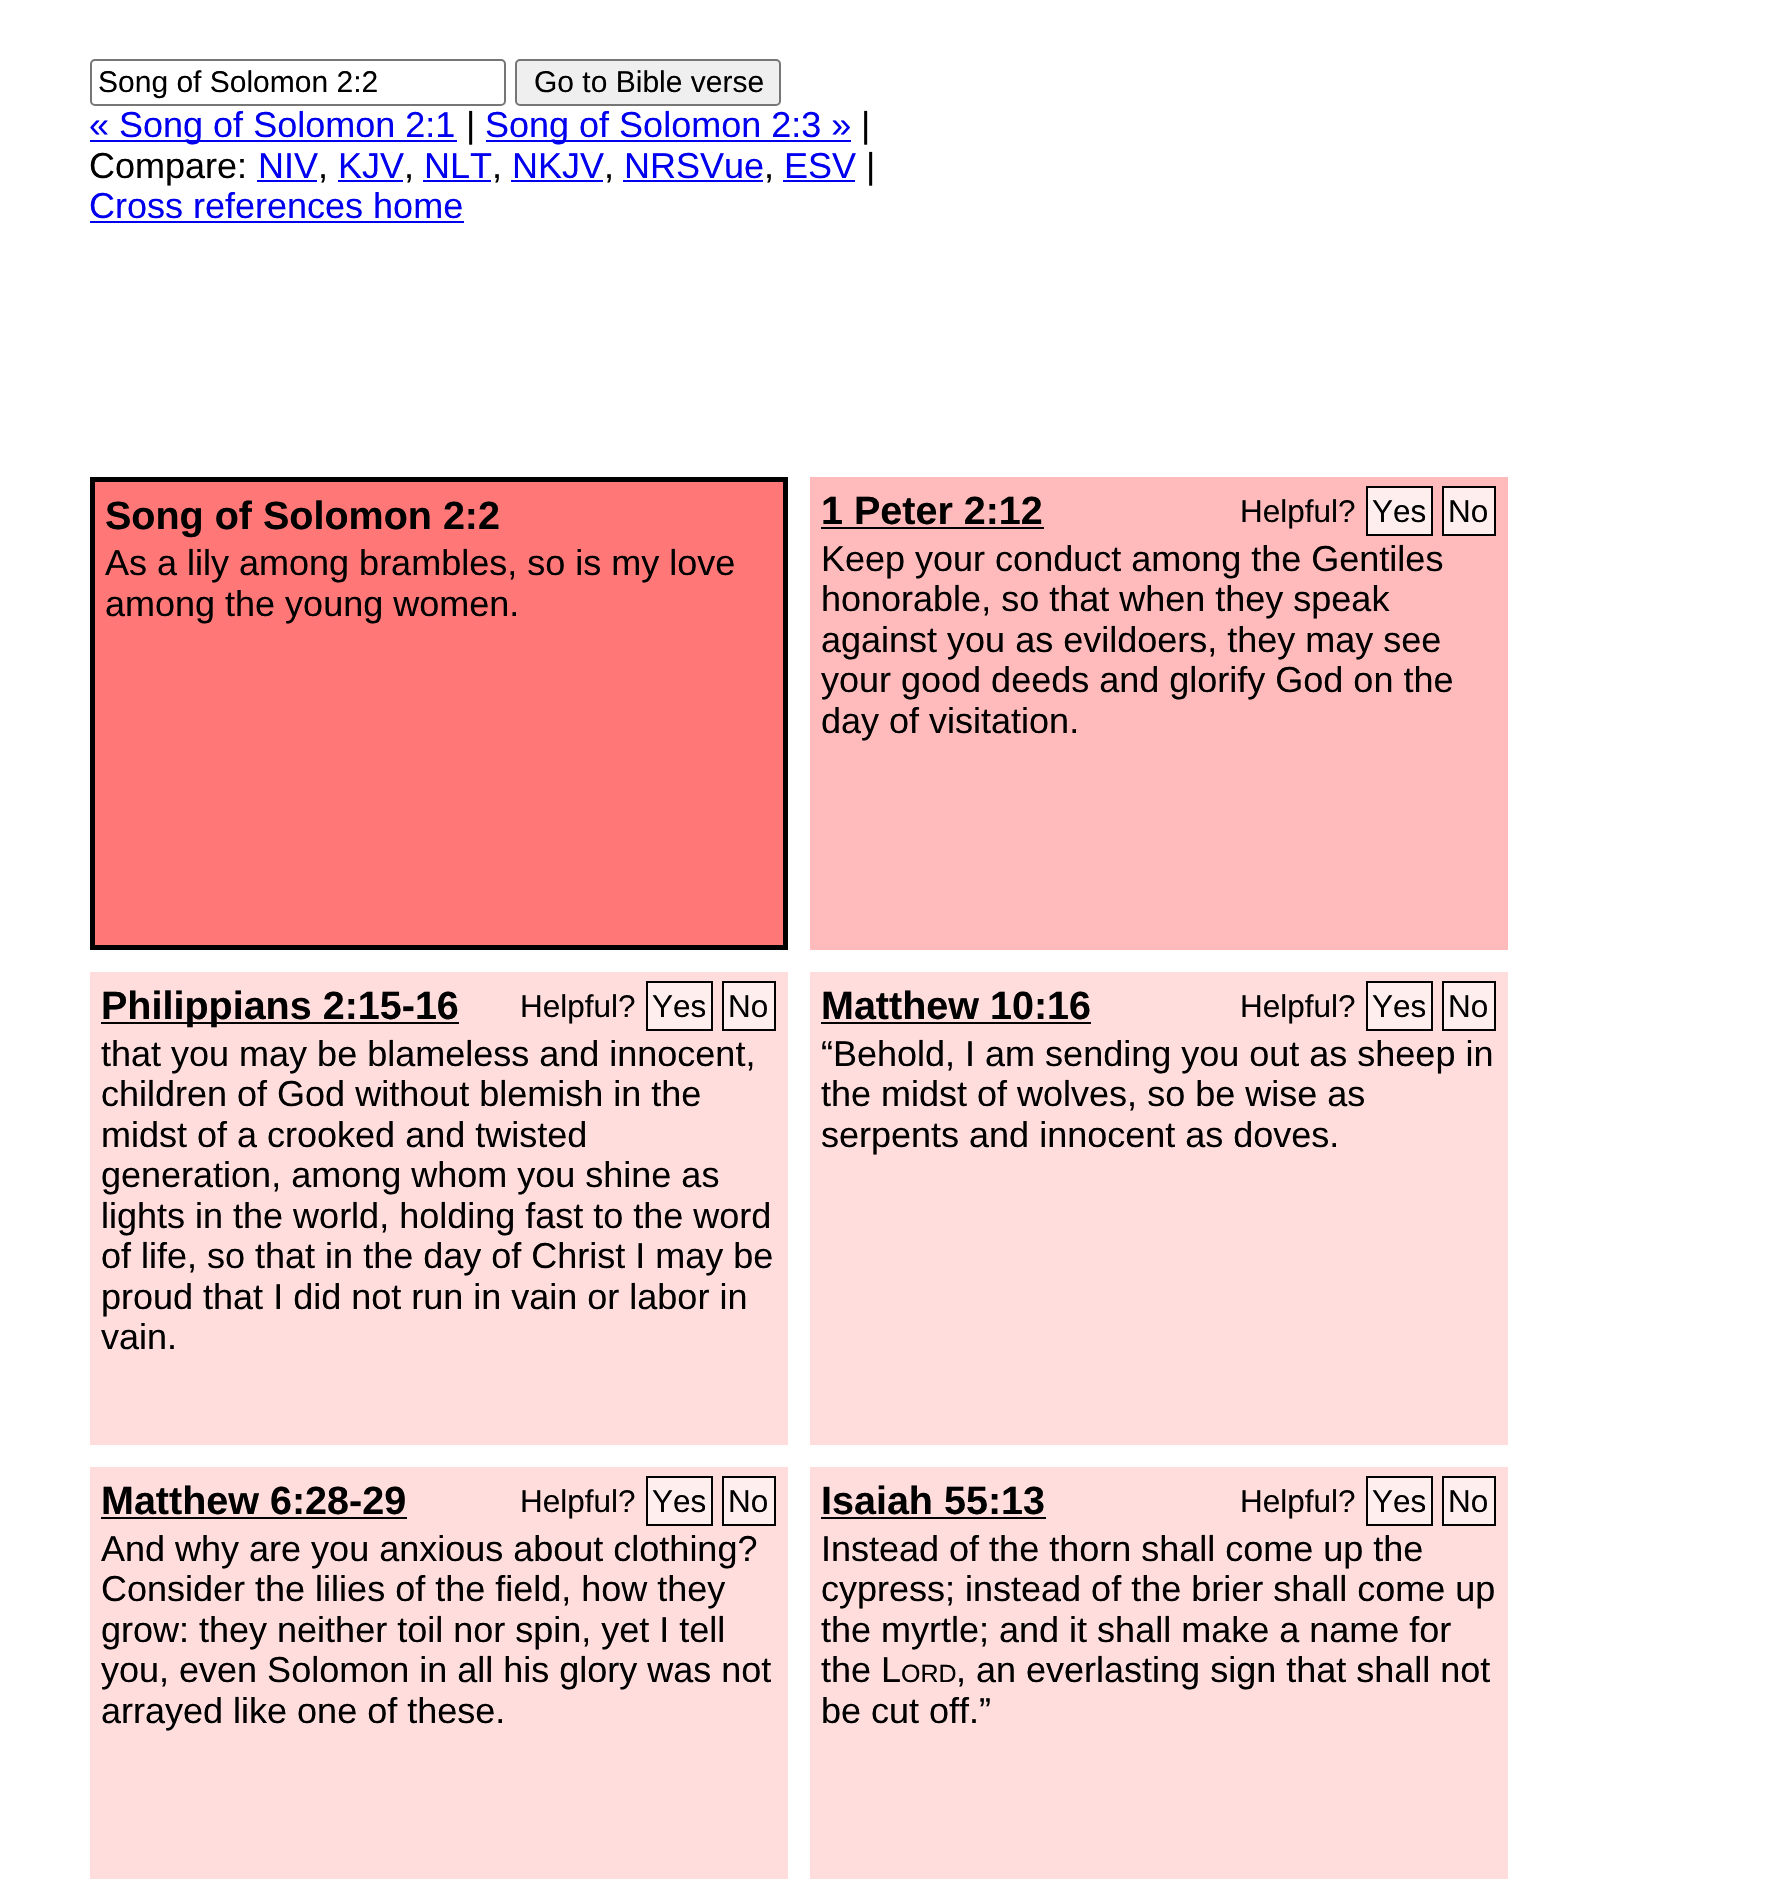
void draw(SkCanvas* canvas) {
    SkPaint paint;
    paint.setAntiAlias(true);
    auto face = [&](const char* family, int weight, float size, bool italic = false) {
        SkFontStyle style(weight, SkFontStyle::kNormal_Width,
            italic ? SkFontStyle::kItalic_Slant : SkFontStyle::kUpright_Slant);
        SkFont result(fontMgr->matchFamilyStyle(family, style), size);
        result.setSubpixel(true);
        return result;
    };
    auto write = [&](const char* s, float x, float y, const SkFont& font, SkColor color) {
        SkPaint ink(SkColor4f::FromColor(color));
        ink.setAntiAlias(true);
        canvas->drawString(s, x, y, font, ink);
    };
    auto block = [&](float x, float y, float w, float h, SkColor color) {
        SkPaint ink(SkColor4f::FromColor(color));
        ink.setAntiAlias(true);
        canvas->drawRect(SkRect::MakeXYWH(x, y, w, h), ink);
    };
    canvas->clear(SK_ColorWHITE);
    paint.setStyle(SkPaint::kStroke_Style);
    paint.setStrokeWidth(2);
    paint.setColor(SkColorSetRGB(118, 118, 118));
    canvas->drawRoundRect(SkRect::MakeXYWH(91, 60, 414, 45), 4, 4, paint);
    auto kFont1 = face("Liberation Sans", 400, 30);
    write("Song of Solomon 2:2", 98, 92, kFont1, SK_ColorBLACK);
    paint.setStyle(SkPaint::kFill_Style);
    paint.setColor(SkColorSetRGB(239, 239, 239));
    canvas->drawRoundRect(SkRect::MakeXYWH(516, 60, 264, 45), 4, 4, paint);
    paint.setStyle(SkPaint::kStroke_Style);
    paint.setColor(SkColorSetRGB(118, 118, 118));
    canvas->drawRoundRect(SkRect::MakeXYWH(516, 60, 264, 45), 4, 4, paint);
    write("Go to Bible verse", 534, 92, kFont1, SK_ColorBLACK);
    block(90, 140, 367, 2, SkColorSetRGB(0, 0, 238));
    auto kFont2 = face("Liberation Sans", 400, 36);
    write("« Song of Solomon 2:1", 89, 137, kFont2, SkColorSetRGB(0, 0, 238));
    write("|", 466, 137, kFont2, SK_ColorBLACK);
    block(486, 140, 365, 2, SkColorSetRGB(0, 0, 238));
    write("Song of Solomon 2:3 »", 485, 137, kFont2, SkColorSetRGB(0, 0, 238));
    write("|", 861, 137, kFont2, SK_ColorBLACK);
    write("Compare:", 89, 178, kFont2, SK_ColorBLACK);
    write("NIV", 258, 178, kFont2, SkColorSetRGB(0, 0, 238));
    block(257, 180, 60, 2, SkColorSetRGB(0, 0, 238));
    write(",", 318, 178, kFont2, SK_ColorBLACK);
    write("KJV", 338, 178, kFont2, SkColorSetRGB(0, 0, 238));
    block(338, 180, 65, 2, SkColorSetRGB(0, 0, 238));
    write(",", 404, 178, kFont2, SK_ColorBLACK);
    write("NLT", 424, 178, kFont2, SkColorSetRGB(0, 0, 238));
    block(423, 180, 68, 2, SkColorSetRGB(0, 0, 238));
    write(",", 492, 178, kFont2, SK_ColorBLACK);
    write("NKJV", 512, 178, kFont2, SkColorSetRGB(0, 0, 238));
    block(511, 180, 92, 2, SkColorSetRGB(0, 0, 238));
    write(",", 604, 178, kFont2, SK_ColorBLACK);
    write("NRSVue", 624, 178, kFont2, SkColorSetRGB(0, 0, 238));
    block(623, 180, 140, 2, SkColorSetRGB(0, 0, 238));
    write(",", 764, 178, kFont2, SK_ColorBLACK);
    write("ESV", 784, 178, kFont2, SkColorSetRGB(0, 0, 238));
    block(783, 180, 72, 2, SkColorSetRGB(0, 0, 238));
    write("|", 866, 178, kFont2, SK_ColorBLACK);
    write("Cross references home", 89, 218, kFont2, SkColorSetRGB(0, 0, 238));
    block(90, 221, 374, 2, SkColorSetRGB(0, 0, 238));
    paint.setStyle(SkPaint::kFill_Style);
    paint.setColor(SkColorSetRGB(255, 119, 119));
    canvas->drawRect(SkRect::MakeXYWH(92.5f, 479.5f, 693, 468), paint);
    paint.setStyle(SkPaint::kStroke_Style);
    paint.setStrokeWidth(5);
    paint.setColor(SK_ColorBLACK);
    canvas->drawRect(SkRect::MakeXYWH(92.5f, 479.5f, 693, 468), paint);
    auto kFont3 = face("Liberation Sans", 700, 39.5f);
    write("Song of Solomon 2:2", 105, 529, kFont3, SK_ColorBLACK);
    write("As a lily among brambles, so is my love", 105, 575, kFont2, SK_ColorBLACK);
    write("among the young women.", 105, 616, kFont2, SK_ColorBLACK);
    block(810, 477, 698, 473, SkColorSetRGB(255, 187, 187));
    write("1 Peter 2:12", 821, 524, kFont3, SK_ColorBLACK);
    block(821, 527, 223, 2, SK_ColorBLACK);
    auto kFont4 = face("Liberation Sans", 400, 31.5f);
    write("Helpful?", 1240, 522, kFont4, SK_ColorBLACK);
    paint.setStyle(SkPaint::kFill_Style);
    paint.setColor(SkColorSetRGB(255, 238, 238));
    canvas->drawRect(SkRect::MakeXYWH(1367, 487, 65, 48), paint);
    paint.setStyle(SkPaint::kStroke_Style);
    paint.setStrokeWidth(2);
    paint.setColor(SK_ColorBLACK);
    canvas->drawRect(SkRect::MakeXYWH(1367, 487, 65, 48), paint);
    write("Yes", 1372, 522, kFont4, SK_ColorBLACK);
    paint.setStyle(SkPaint::kFill_Style);
    paint.setColor(SkColorSetRGB(255, 238, 238));
    canvas->drawRect(SkRect::MakeXYWH(1443, 487, 52, 48), paint);
    paint.setStyle(SkPaint::kStroke_Style);
    paint.setColor(SK_ColorBLACK);
    canvas->drawRect(SkRect::MakeXYWH(1443, 487, 52, 48), paint);
    write("No", 1448, 522, kFont4, SK_ColorBLACK);
    write("Keep your conduct among the Gentiles", 821, 571, kFont2, SK_ColorBLACK);
    write("honorable, so that when they speak", 821, 611, kFont2, SK_ColorBLACK);
    write("against you as evildoers, they may see", 821, 652, kFont2, SK_ColorBLACK);
    write("your good deeds and glorify God on the", 821, 692, kFont2, SK_ColorBLACK);
    write("day of visitation.", 821, 733, kFont2, SK_ColorBLACK);
    block(90, 972, 698, 473, SkColorSetRGB(255, 221, 221));
    block(101, 1022, 358, 2, SK_ColorBLACK);
    write("Philippians 2:15-16", 101, 1019, kFont3, SK_ColorBLACK);
    write("Helpful?", 520, 1017, kFont4, SK_ColorBLACK);
    paint.setStyle(SkPaint::kFill_Style);
    paint.setColor(SkColorSetRGB(255, 238, 238));
    canvas->drawRect(SkRect::MakeXYWH(647, 982, 65, 48), paint);
    paint.setStyle(SkPaint::kStroke_Style);
    paint.setColor(SK_ColorBLACK);
    canvas->drawRect(SkRect::MakeXYWH(647, 982, 65, 48), paint);
    write("Yes", 652, 1017, kFont4, SK_ColorBLACK);
    paint.setStyle(SkPaint::kFill_Style);
    paint.setColor(SkColorSetRGB(255, 238, 238));
    canvas->drawRect(SkRect::MakeXYWH(723, 982, 52, 48), paint);
    paint.setStyle(SkPaint::kStroke_Style);
    paint.setColor(SK_ColorBLACK);
    canvas->drawRect(SkRect::MakeXYWH(723, 982, 52, 48), paint);
    write("No", 728, 1017, kFont4, SK_ColorBLACK);
    write("that you may be blameless and innocent,", 101, 1066, kFont2, SK_ColorBLACK);
    write("children of God without blemish in the", 101, 1106, kFont2, SK_ColorBLACK);
    write("midst of a crooked and twisted", 101, 1147, kFont2, SK_ColorBLACK);
    write("generation, among whom you shine as", 101, 1187, kFont2, SK_ColorBLACK);
    write("lights in the world, holding fast to the word", 101, 1228, kFont2, SK_ColorBLACK);
    write("of life, so that in the day of Christ I may be", 101, 1268, kFont2, SK_ColorBLACK);
    write("proud that I did not run in vain or labor in", 101, 1309, kFont2, SK_ColorBLACK);
    write("vain.", 101, 1349, kFont2, SK_ColorBLACK);
    block(810, 972, 698, 473, SkColorSetRGB(255, 221, 221));
    write("Matthew 10:16", 821, 1019, kFont3, SK_ColorBLACK);
    block(821, 1022, 270, 2, SK_ColorBLACK);
    write("Helpful?", 1240, 1017, kFont4, SK_ColorBLACK);
    paint.setStyle(SkPaint::kFill_Style);
    paint.setColor(SkColorSetRGB(255, 238, 238));
    canvas->drawRect(SkRect::MakeXYWH(1367, 982, 65, 48), paint);
    paint.setStyle(SkPaint::kStroke_Style);
    paint.setColor(SK_ColorBLACK);
    canvas->drawRect(SkRect::MakeXYWH(1367, 982, 65, 48), paint);
    write("Yes", 1372, 1017, kFont4, SK_ColorBLACK);
    paint.setStyle(SkPaint::kFill_Style);
    paint.setColor(SkColorSetRGB(255, 238, 238));
    canvas->drawRect(SkRect::MakeXYWH(1443, 982, 52, 48), paint);
    paint.setStyle(SkPaint::kStroke_Style);
    paint.setColor(SK_ColorBLACK);
    canvas->drawRect(SkRect::MakeXYWH(1443, 982, 52, 48), paint);
    write("No", 1448, 1017, kFont4, SK_ColorBLACK);
    write("“Behold, I am sending you out as sheep in", 821, 1066, kFont2, SK_ColorBLACK);
    write("the midst of wolves, so be wise as", 821, 1106, kFont2, SK_ColorBLACK);
    write("serpents and innocent as doves.", 821, 1147, kFont2, SK_ColorBLACK);
    block(90, 1467, 698, 412, SkColorSetRGB(255, 221, 221));
    write("Matthew 6:28-29", 101, 1514, kFont3, SK_ColorBLACK);
    block(101, 1517, 306, 2, SK_ColorBLACK);
    write("Helpful?", 520, 1512, kFont4, SK_ColorBLACK);
    paint.setStyle(SkPaint::kFill_Style);
    paint.setColor(SkColorSetRGB(255, 238, 238));
    canvas->drawRect(SkRect::MakeXYWH(647, 1477, 65, 48), paint);
    paint.setStyle(SkPaint::kStroke_Style);
    paint.setColor(SK_ColorBLACK);
    canvas->drawRect(SkRect::MakeXYWH(647, 1477, 65, 48), paint);
    write("Yes", 652, 1512, kFont4, SK_ColorBLACK);
    paint.setStyle(SkPaint::kFill_Style);
    paint.setColor(SkColorSetRGB(255, 238, 238));
    canvas->drawRect(SkRect::MakeXYWH(723, 1477, 52, 48), paint);
    paint.setStyle(SkPaint::kStroke_Style);
    paint.setColor(SK_ColorBLACK);
    canvas->drawRect(SkRect::MakeXYWH(723, 1477, 52, 48), paint);
    write("No", 728, 1512, kFont4, SK_ColorBLACK);
    write("And why are you anxious about clothing?", 101, 1561, kFont2, SK_ColorBLACK);
    write("Consider the lilies of the field, how they", 101, 1601, kFont2, SK_ColorBLACK);
    write("grow: they neither toil nor spin, yet I tell", 101, 1642, kFont2, SK_ColorBLACK);
    write("you, even Solomon in all his glory was not", 101, 1682, kFont2, SK_ColorBLACK);
    write("arrayed like one of these.", 101, 1723, kFont2, SK_ColorBLACK);
    block(810, 1467, 698, 412, SkColorSetRGB(255, 221, 221));
    write("Isaiah 55:13", 821, 1514, kFont3, SK_ColorBLACK);
    block(821, 1517, 225, 2, SK_ColorBLACK);
    write("Helpful?", 1240, 1512, kFont4, SK_ColorBLACK);
    paint.setStyle(SkPaint::kFill_Style);
    paint.setColor(SkColorSetRGB(255, 238, 238));
    canvas->drawRect(SkRect::MakeXYWH(1367, 1477, 65, 48), paint);
    paint.setStyle(SkPaint::kStroke_Style);
    paint.setColor(SK_ColorBLACK);
    canvas->drawRect(SkRect::MakeXYWH(1367, 1477, 65, 48), paint);
    write("Yes", 1372, 1512, kFont4, SK_ColorBLACK);
    paint.setStyle(SkPaint::kFill_Style);
    paint.setColor(SkColorSetRGB(255, 238, 238));
    canvas->drawRect(SkRect::MakeXYWH(1443, 1477, 52, 48), paint);
    paint.setStyle(SkPaint::kStroke_Style);
    paint.setColor(SK_ColorBLACK);
    canvas->drawRect(SkRect::MakeXYWH(1443, 1477, 52, 48), paint);
    write("No", 1448, 1512, kFont4, SK_ColorBLACK);
    write("Instead of the thorn shall come up the", 821, 1561, kFont2, SK_ColorBLACK);
    write("cypress; instead of the brier shall come up", 821, 1601, kFont2, SK_ColorBLACK);
    write("the myrtle; and it shall make a name for", 821, 1642, kFont2, SK_ColorBLACK);
    write("the L", 821, 1682, kFont2, SK_ColorBLACK);
    auto kFont5 = face("Liberation Sans", 400, 25);
    write("ORD", 901, 1682, kFont5, SK_ColorBLACK);
    write(", an everlasting sign that shall not", 956, 1682, kFont2, SK_ColorBLACK);
    write("be cut off.”", 821, 1723, kFont2, SK_ColorBLACK);
}
